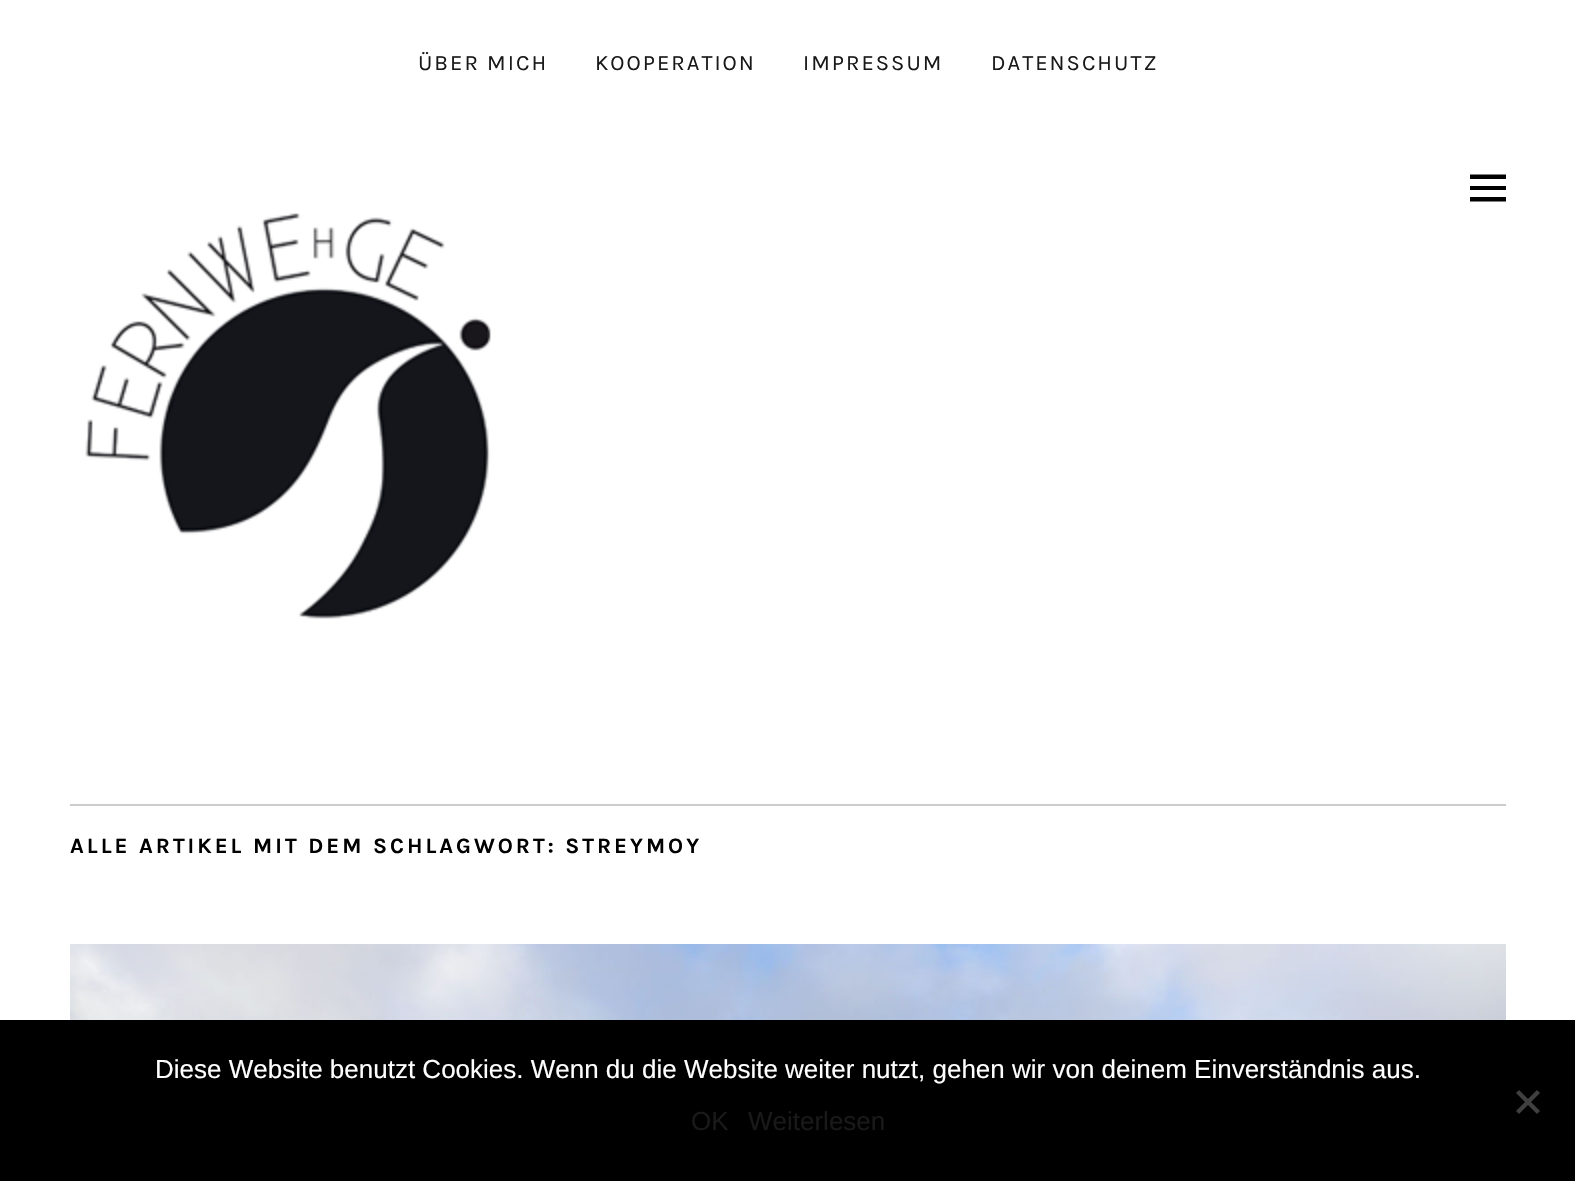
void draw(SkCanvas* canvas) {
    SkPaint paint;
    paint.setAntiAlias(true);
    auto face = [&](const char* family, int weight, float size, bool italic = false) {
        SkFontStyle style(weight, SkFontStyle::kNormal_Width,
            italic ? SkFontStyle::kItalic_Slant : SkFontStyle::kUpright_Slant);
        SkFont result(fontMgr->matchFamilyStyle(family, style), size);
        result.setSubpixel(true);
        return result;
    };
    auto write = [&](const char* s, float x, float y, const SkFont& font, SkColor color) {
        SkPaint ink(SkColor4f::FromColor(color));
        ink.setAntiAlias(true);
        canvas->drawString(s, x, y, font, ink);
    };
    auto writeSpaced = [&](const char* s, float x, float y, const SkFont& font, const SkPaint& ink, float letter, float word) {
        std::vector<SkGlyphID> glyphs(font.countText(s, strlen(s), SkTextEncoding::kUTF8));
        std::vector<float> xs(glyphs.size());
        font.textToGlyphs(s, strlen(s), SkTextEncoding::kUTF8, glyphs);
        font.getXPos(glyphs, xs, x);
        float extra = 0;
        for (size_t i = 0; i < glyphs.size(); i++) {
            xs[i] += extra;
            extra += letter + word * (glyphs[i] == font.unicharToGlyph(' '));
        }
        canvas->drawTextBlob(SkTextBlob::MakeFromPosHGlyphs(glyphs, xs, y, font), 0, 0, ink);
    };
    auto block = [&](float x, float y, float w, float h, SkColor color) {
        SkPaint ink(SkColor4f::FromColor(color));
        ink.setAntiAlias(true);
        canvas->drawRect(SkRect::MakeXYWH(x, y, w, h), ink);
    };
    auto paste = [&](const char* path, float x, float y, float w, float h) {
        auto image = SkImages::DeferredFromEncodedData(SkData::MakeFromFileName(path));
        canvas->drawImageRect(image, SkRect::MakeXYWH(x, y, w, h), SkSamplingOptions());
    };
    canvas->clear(SK_ColorWHITE);
    auto kFont1 = face("Karla", 400, 22);
    paint.setColor(SkColorSetRGB(25, 25, 25));
    writeSpaced("ÜBER MICH", 418, 70, kFont1, paint, 2, 0);
    writeSpaced("KOOPERATION", 595, 70, kFont1, paint, 2, 0);
    writeSpaced("IMPRESSUM", 803, 70, kFont1, paint, 2, 0);
    writeSpaced("DATENSCHUTZ", 991, 70, kFont1, paint, 2, 0);
    paint.setColor(SK_ColorBLACK);
    canvas->drawPath(SkPathBuilder().moveTo(1470, 201.5f).lineTo(1470, 197).lineTo(1506, 197).lineTo(1506, 201.5f).close().moveTo(1470, 174.5f).lineTo(1506, 174.5f).lineTo(1506, 179).lineTo(1470, 179).close().moveTo(1470, 190).lineTo(1470, 186).lineTo(1506, 186).lineTo(1506, 190).close().detach(), paint);
    paste("pic1.png", 85, 213, 406, 406);
    block(70, 804, 1436, 2, SkColorSetRGB(204, 204, 204));
    auto kFont2 = face("Karla", 700, 22);
    writeSpaced("ALLE ARTIKEL MIT DEM SCHLAGWORT: STREYMOY", 70, 853, kFont2, paint, 3, 0);
    paste("pic2.png", 70, 944, 1436, 76);
    block(0, 1020, 1575, 161, SK_ColorBLACK);
    auto kFont3 = face("Liberation Sans", 400, 26);
    write("Diese Website benutzt Cookies. Wenn du die Website weiter nutzt, gehen wir von deinem Einverständnis aus.", 155, 1078, kFont3, SK_ColorWHITE);
    paint.setColor(SkColorSetRGB(64, 64, 64));
    canvas->drawPath(SkPathBuilder().moveTo(1537, 1090).lineTo(1540, 1093).lineTo(1519, 1114).lineTo(1516, 1111).close().detach(), paint);
    canvas->drawPath(SkPathBuilder().moveTo(1516, 1093).lineTo(1519, 1090).lineTo(1540, 1111).lineTo(1537, 1114).close().detach(), paint);
    write("OK", 691, 1130, kFont3, SkColorSetRGB(25, 25, 25));
    write("Weiterlesen", 748, 1130, kFont3, SkColorSetRGB(25, 25, 25));
}
